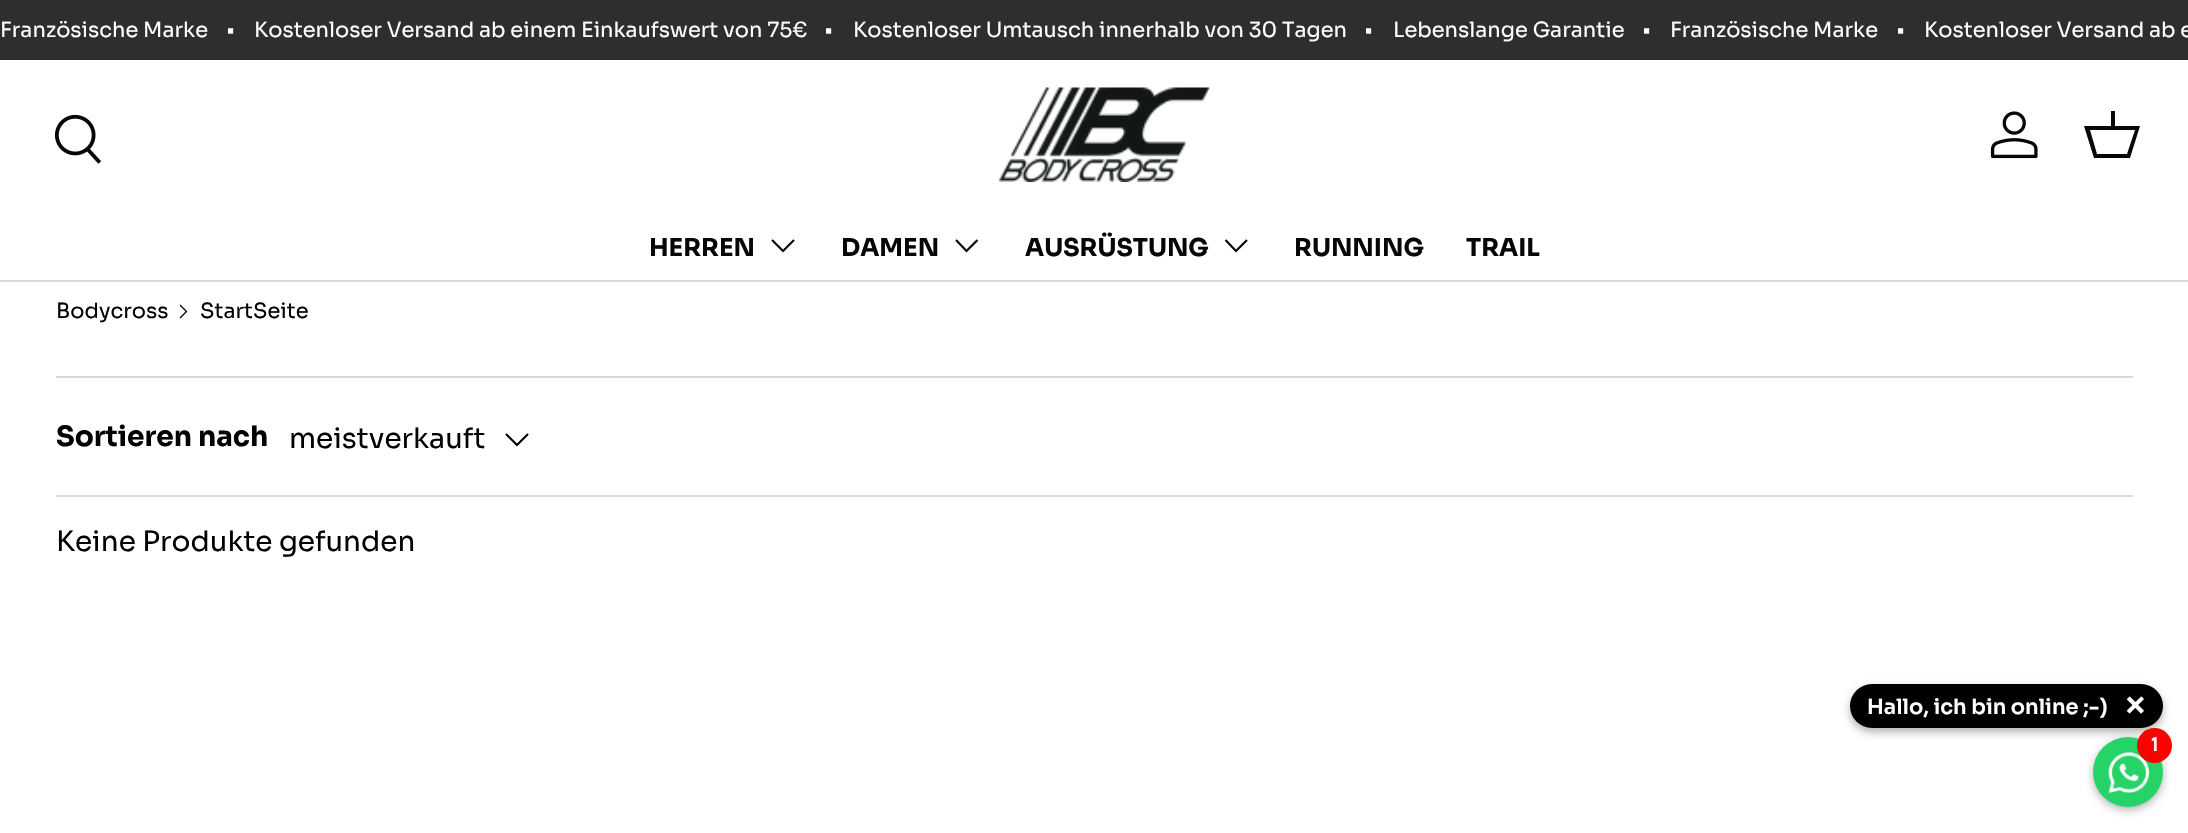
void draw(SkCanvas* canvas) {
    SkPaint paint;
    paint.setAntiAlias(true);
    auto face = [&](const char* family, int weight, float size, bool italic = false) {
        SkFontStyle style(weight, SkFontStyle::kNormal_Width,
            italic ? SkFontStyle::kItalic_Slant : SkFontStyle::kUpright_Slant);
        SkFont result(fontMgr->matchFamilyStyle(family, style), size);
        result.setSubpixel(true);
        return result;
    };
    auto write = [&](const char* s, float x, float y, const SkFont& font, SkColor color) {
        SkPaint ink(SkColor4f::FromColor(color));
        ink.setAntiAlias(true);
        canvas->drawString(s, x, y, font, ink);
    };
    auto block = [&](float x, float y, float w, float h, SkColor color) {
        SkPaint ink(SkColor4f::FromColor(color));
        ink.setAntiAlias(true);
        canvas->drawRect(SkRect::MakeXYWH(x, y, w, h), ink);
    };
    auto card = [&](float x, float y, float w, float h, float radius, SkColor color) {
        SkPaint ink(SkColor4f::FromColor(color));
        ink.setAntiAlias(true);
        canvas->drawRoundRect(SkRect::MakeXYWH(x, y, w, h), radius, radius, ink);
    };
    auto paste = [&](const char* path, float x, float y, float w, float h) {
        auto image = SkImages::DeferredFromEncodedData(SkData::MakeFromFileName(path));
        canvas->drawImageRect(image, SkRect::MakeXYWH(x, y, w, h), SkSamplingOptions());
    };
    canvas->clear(SK_ColorWHITE);
    block(0, 0, 2188, 60, SkColorSetRGB(46, 46, 46));
    auto kFont1 = face("Sora", 400, 21);
    write("Französische Marke", 0, 37, kFont1, SK_ColorWHITE);
    write("•", 226, 37, kFont1, SK_ColorWHITE);
    write("Kostenloser Versand ab einem Einkaufswert von 75€", 254, 37, kFont1, SK_ColorWHITE);
    write("•", 824, 37, kFont1, SK_ColorWHITE);
    write("Kostenloser Umtausch innerhalb von 30 Tagen", 853, 37, kFont1, SK_ColorWHITE);
    write("•", 1364, 37, kFont1, SK_ColorWHITE);
    write("Lebenslange Garantie", 1393, 37, kFont1, SK_ColorWHITE);
    write("•", 1642, 37, kFont1, SK_ColorWHITE);
    write("Französische Marke", 1670, 37, kFont1, SK_ColorWHITE);
    write("•", 1896, 37, kFont1, SK_ColorWHITE);
    write("Kostenloser Versand ab e", 1924, 37, kFont1, SK_ColorWHITE);
    block(0, 280, 2188, 2, SkColorSetRGB(218, 218, 218));
    paste("pic1.png", 54, 114, 48, 50);
    paste("pic2.png", 998, 87, 212, 95);
    paste("pic3.png", 1990, 111, 48, 48);
    paint.setColor(SkColorSetRGB(7, 7, 7));
    canvas->drawPath(SkPathBuilder().moveTo(2111, 126).lineTo(2111, 111).lineTo(2115, 111).lineTo(2115, 126).lineTo(2140, 126).lineTo(2130, 158).lineTo(2094, 158).lineTo(2084, 126).close().moveTo(2090, 130).lineTo(2097, 154).lineTo(2127, 154).lineTo(2135, 130).close().detach(), paint);
    auto kFont2 = face("Sora", 700, 24.5f);
    write("HERREN", 649, 256, kFont2, SkColorSetRGB(7, 7, 7));
    paint.setStyle(SkPaint::kStroke_Style);
    paint.setStrokeWidth(2.2f);
    canvas->drawPath(SkPathBuilder().moveTo(794, 240).lineTo(783, 251).lineTo(772, 240).detach(), paint);
    write("DAMEN", 841, 256, kFont2, SkColorSetRGB(7, 7, 7));
    canvas->drawPath(SkPathBuilder().moveTo(977.5f, 240).lineTo(966.5f, 251).lineTo(956, 240).detach(), paint);
    write("AUSRÜSTUNG", 1025, 256, kFont2, SkColorSetRGB(7, 7, 7));
    canvas->drawPath(SkPathBuilder().moveTo(1247, 240).lineTo(1236, 251).lineTo(1225.5f, 240).detach(), paint);
    write("RUNNING", 1294, 256, kFont2, SkColorSetRGB(7, 7, 7));
    write("TRAIL", 1466, 256, kFont2, SkColorSetRGB(7, 7, 7));
    write("Bodycross", 56, 318, kFont1, SK_ColorBLACK);
    paint.setStrokeWidth(1.3f);
    paint.setColor(SK_ColorBLACK);
    canvas->drawPath(SkPathBuilder().moveTo(180, 305).lineTo(186.5f, 311.5f).lineTo(180, 318).detach(), paint);
    write("StartSeite", 200, 318, kFont1, SK_ColorBLACK);
    block(56, 376, 2077, 2, SkColorSetRGB(217, 217, 217));
    block(56, 495, 2077, 2, SkColorSetRGB(217, 217, 217));
    auto kFont3 = face("Sora", 700, 28);
    write("Sortieren nach", 56, 446, kFont3, SK_ColorBLACK);
    auto kFont4 = face("Sora", 400, 28);
    write("meistverkauft", 289, 448, kFont4, SK_ColorBLACK);
    paint.setStrokeWidth(2.2f);
    canvas->drawPath(SkPathBuilder().moveTo(528, 434).lineTo(517, 445).lineTo(506, 434).detach(), paint);
    write("Keine Produkte gefunden", 56, 551, kFont4, SK_ColorBLACK);
    paint.setStyle(SkPaint::kFill_Style);
    paint.setColor(SkColorSetARGB(77, 0, 0, 0));
    paint.setMaskFilter(SkMaskFilter::MakeBlur(kNormal_SkBlurStyle, 4.5f));
    canvas->drawRoundRect(SkRect::MakeXYWH(1850, 688, 313, 44), 22, 22, paint);
    paint.setMaskFilter(nullptr);
    card(1850, 684, 313, 44, 22, SK_ColorBLACK);
    auto kFont5 = face("Sora", 600, 21);
    write("Hallo, ich bin online ;-)", 1867, 714, kFont5, SK_ColorWHITE);
    auto kFont6 = face("Sora", 600, 35);
    write("×", 2125, 717, kFont6, SK_ColorWHITE);
    paint.setMaskFilter(SkMaskFilter::MakeBlur(kNormal_SkBlurStyle, 4.5f));
    canvas->drawRoundRect(SkRect::MakeXYWH(2093, 740, 70, 70), 35, 35, paint);
    paint.setMaskFilter(nullptr);
    paint.setColor(SkColorSetRGB(37, 211, 102));
    canvas->drawCircle(2128, 772, 35, paint);
    paste("pic4.png", 2108, 752, 41, 41);
    paint.setColor(SkColorSetRGB(255, 0, 0));
    canvas->drawCircle(2154.5f, 745.5f, 17.5f, paint);
    auto kFont7 = face("Karla", 700, 21);
    write("1", 2151, 751, kFont7, SK_ColorWHITE);
}
